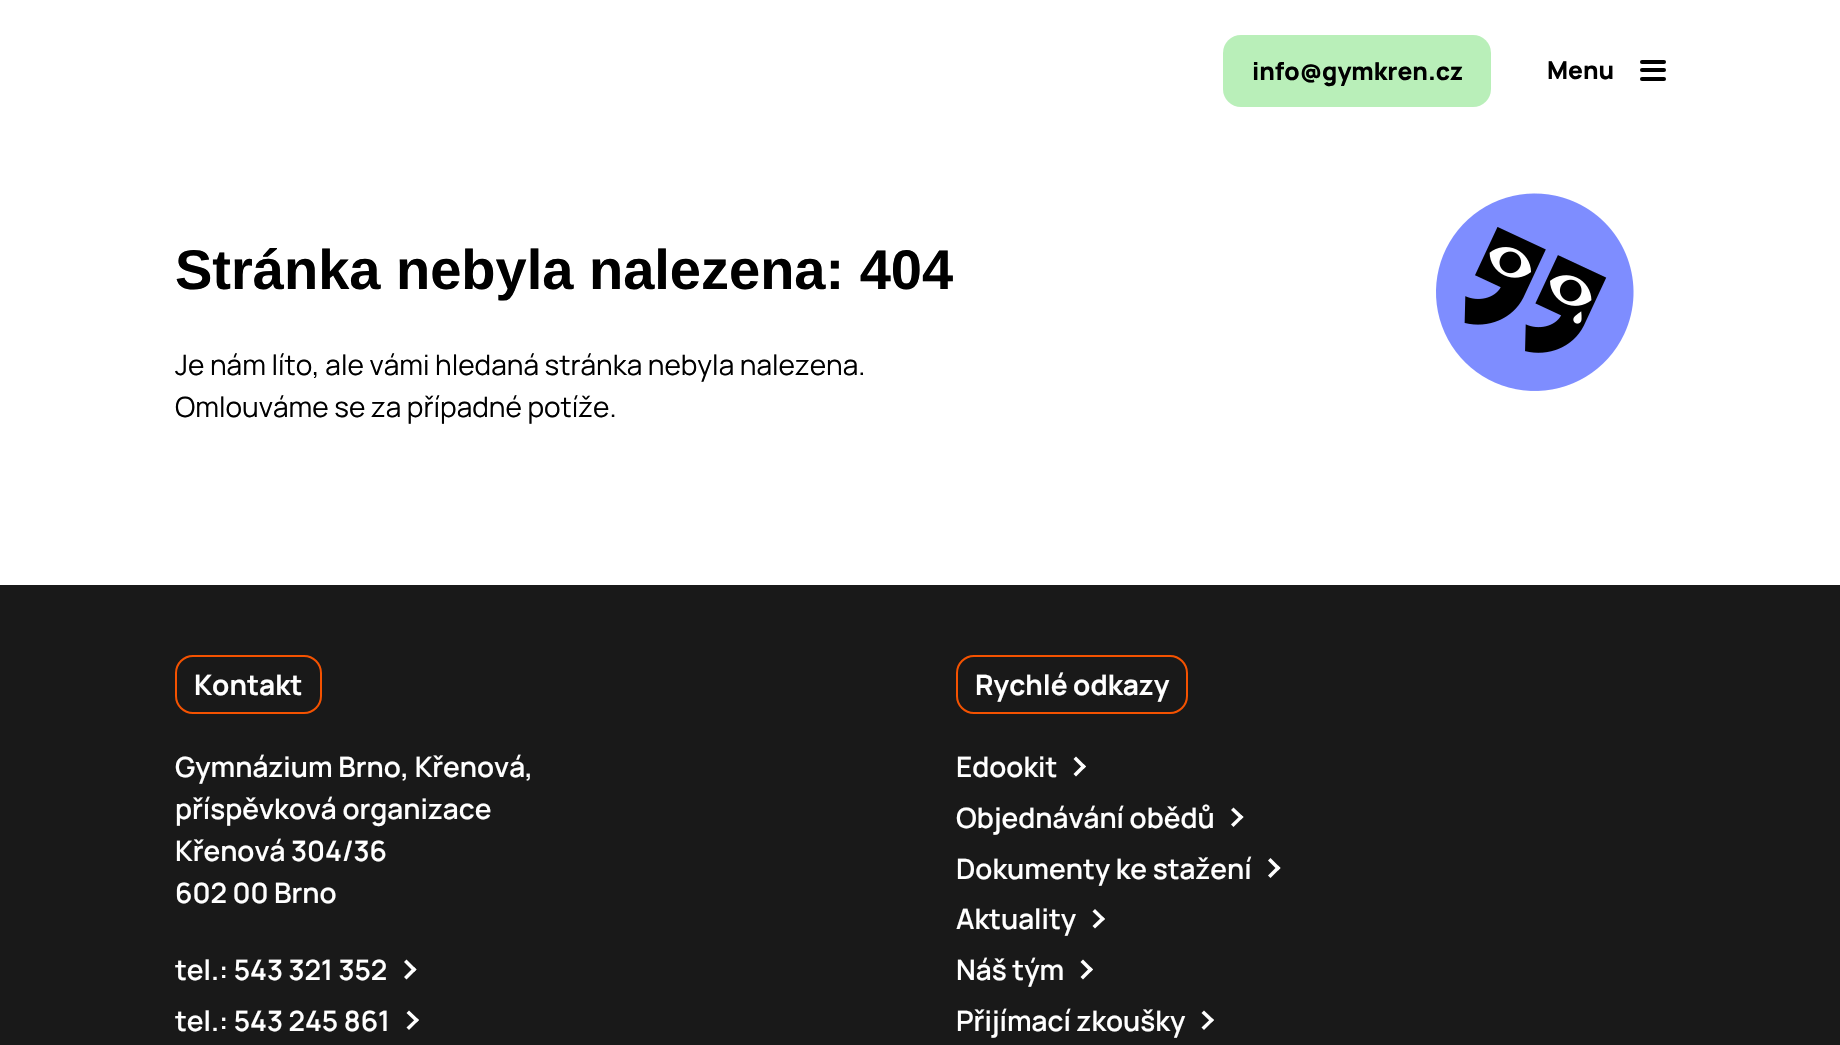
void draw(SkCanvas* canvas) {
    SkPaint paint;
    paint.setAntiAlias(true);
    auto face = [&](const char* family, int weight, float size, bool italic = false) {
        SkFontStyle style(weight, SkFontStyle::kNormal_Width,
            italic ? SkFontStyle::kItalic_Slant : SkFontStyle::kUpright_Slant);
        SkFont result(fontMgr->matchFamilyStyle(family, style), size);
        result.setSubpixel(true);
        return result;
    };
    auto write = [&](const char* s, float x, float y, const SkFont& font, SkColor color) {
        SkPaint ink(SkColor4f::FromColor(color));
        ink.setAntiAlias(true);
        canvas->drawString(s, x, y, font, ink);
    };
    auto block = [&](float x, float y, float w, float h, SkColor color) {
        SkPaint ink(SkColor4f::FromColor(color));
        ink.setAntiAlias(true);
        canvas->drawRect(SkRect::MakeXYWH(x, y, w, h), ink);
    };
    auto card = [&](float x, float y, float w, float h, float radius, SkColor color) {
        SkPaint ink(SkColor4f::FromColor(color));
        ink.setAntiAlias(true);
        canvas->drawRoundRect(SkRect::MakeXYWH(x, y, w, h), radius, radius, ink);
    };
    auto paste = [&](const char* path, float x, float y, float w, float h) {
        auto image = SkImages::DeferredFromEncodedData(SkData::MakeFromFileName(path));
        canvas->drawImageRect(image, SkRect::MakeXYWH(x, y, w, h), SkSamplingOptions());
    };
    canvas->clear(SK_ColorWHITE);
    card(1223, 35, 268, 72, 18, SkColorSetRGB(185, 239, 185));
    auto kFont1 = face("Manrope", 800, 24.5f);
    write("info@gymkren.cz", 1252, 80, kFont1, SK_ColorBLACK);
    write("Menu", 1547, 79, kFont1, SK_ColorBLACK);
    card(1640, 60, 26, 4, 2, SK_ColorBLACK);
    card(1640, 68, 26, 4, 2, SK_ColorBLACK);
    card(1640, 77, 26, 4, 2, SK_ColorBLACK);
    auto kFont2 = face("Liberation Sans", 700, 56);
    write("Stránka nebyla nalezena: 404", 175, 289, kFont2, SK_ColorBLACK);
    paste("pic1.png", 1436, 193, 198, 198);
    auto kFont3 = face("Manrope", 400, 28);
    write("Je nám líto, ale vámi hledaná stránka nebyla nalezena.", 175, 375, kFont3, SK_ColorBLACK);
    write("Omlouváme se za případné potíže.", 175, 417, kFont3, SK_ColorBLACK);
    block(0, 585, 1840, 460, SkColorSetRGB(25, 25, 25));
    paint.setStyle(SkPaint::kStroke_Style);
    paint.setStrokeWidth(2);
    paint.setColor(SkColorSetRGB(245, 82, 0));
    canvas->drawRoundRect(SkRect::MakeXYWH(176, 656, 145, 57), 17, 17, paint);
    auto kFont4 = face("Manrope", 700, 28);
    write("Kontakt", 194, 695, kFont4, SK_ColorWHITE);
    auto kFont5 = face("Manrope", 600, 28);
    write("Gymnázium Brno, Křenová,", 175, 777, kFont5, SK_ColorWHITE);
    write("příspěvková organizace", 175, 819, kFont5, SK_ColorWHITE);
    write("Křenová 304/36", 175, 861, kFont5, SK_ColorWHITE);
    write("602 00 Brno", 175, 903, kFont5, SK_ColorWHITE);
    canvas->drawRoundRect(SkRect::MakeXYWH(957, 656, 230, 57), 17, 17, paint);
    write("Rychlé odkazy", 975, 695, kFont4, SK_ColorWHITE);
    write("Edookit", 956, 777, kFont5, SK_ColorWHITE);
    paint.setStyle(SkPaint::kFill_Style);
    paint.setColor(SK_ColorWHITE);
    canvas->drawPath(SkPathBuilder().moveTo(1073.5f, 759).lineTo(1076, 756.5f).lineTo(1086, 766.5f).lineTo(1083.5f, 769).close().detach(), paint);
    canvas->drawPath(SkPathBuilder().moveTo(1073.5f, 774).lineTo(1083.5f, 764).lineTo(1086, 766.5f).lineTo(1076, 776.5f).close().detach(), paint);
    write("Objednávání obědů", 956, 828, kFont5, SK_ColorWHITE);
    canvas->drawPath(SkPathBuilder().moveTo(1231, 810).lineTo(1233.5f, 807.5f).lineTo(1243.5f, 817).lineTo(1241, 819.5f).close().detach(), paint);
    canvas->drawPath(SkPathBuilder().moveTo(1231, 824.5f).lineTo(1241, 815).lineTo(1243.5f, 817).lineTo(1233.5f, 827).close().detach(), paint);
    write("Dokumenty ke stažení", 956, 879, kFont5, SK_ColorWHITE);
    canvas->drawPath(SkPathBuilder().moveTo(1268, 860.5f).lineTo(1270.5f, 858).lineTo(1280.5f, 868).lineTo(1278, 870.5f).close().detach(), paint);
    canvas->drawPath(SkPathBuilder().moveTo(1268, 875.5f).lineTo(1278, 865.5f).lineTo(1280.5f, 868).lineTo(1270.5f, 878).close().detach(), paint);
    write("Aktuality", 956, 929, kFont5, SK_ColorWHITE);
    canvas->drawPath(SkPathBuilder().moveTo(1092.5f, 911.5f).lineTo(1095, 909).lineTo(1105, 919).lineTo(1102.5f, 921).close().detach(), paint);
    canvas->drawPath(SkPathBuilder().moveTo(1092.5f, 926).lineTo(1102.5f, 916.5f).lineTo(1105, 919).lineTo(1095, 928.5f).close().detach(), paint);
    write("tel.: 543 321 352", 175, 980, kFont5, SK_ColorWHITE);
    canvas->drawPath(SkPathBuilder().moveTo(404, 962).lineTo(406.5f, 959.5f).lineTo(416.5f, 969.5f).lineTo(414, 972).close().detach(), paint);
    canvas->drawPath(SkPathBuilder().moveTo(404, 977).lineTo(414, 967).lineTo(416.5f, 969.5f).lineTo(406.5f, 979.5f).close().moveTo(406.5f, 1013).lineTo(409, 1010.5f).lineTo(419, 1020).lineTo(416.5f, 1022.5f).close().detach(), paint);
    write("tel.: 543 245 861", 175, 1031, kFont5, SK_ColorWHITE);
    canvas->drawPath(SkPathBuilder().moveTo(406.5f, 1027.5f).lineTo(416.5f, 1018).lineTo(419, 1020).lineTo(409, 1030).close().detach(), paint);
    write("Náš tým", 956, 980, kFont5, SK_ColorWHITE);
    canvas->drawPath(SkPathBuilder().moveTo(1080.5f, 962).lineTo(1083, 959.5f).lineTo(1093, 969.5f).lineTo(1090.5f, 972).close().detach(), paint);
    canvas->drawPath(SkPathBuilder().moveTo(1080.5f, 977).lineTo(1090.5f, 967).lineTo(1093, 969.5f).lineTo(1083, 979.5f).close().detach(), paint);
    write("Přijímací zkoušky", 956, 1031, kFont5, SK_ColorWHITE);
    canvas->drawPath(SkPathBuilder().moveTo(1201.5f, 1013).lineTo(1204, 1010.5f).lineTo(1214, 1020).lineTo(1211.5f, 1022.5f).close().detach(), paint);
    canvas->drawPath(SkPathBuilder().moveTo(1201.5f, 1027.5f).lineTo(1211.5f, 1018).lineTo(1214, 1020).lineTo(1204, 1030).close().detach(), paint);
}
